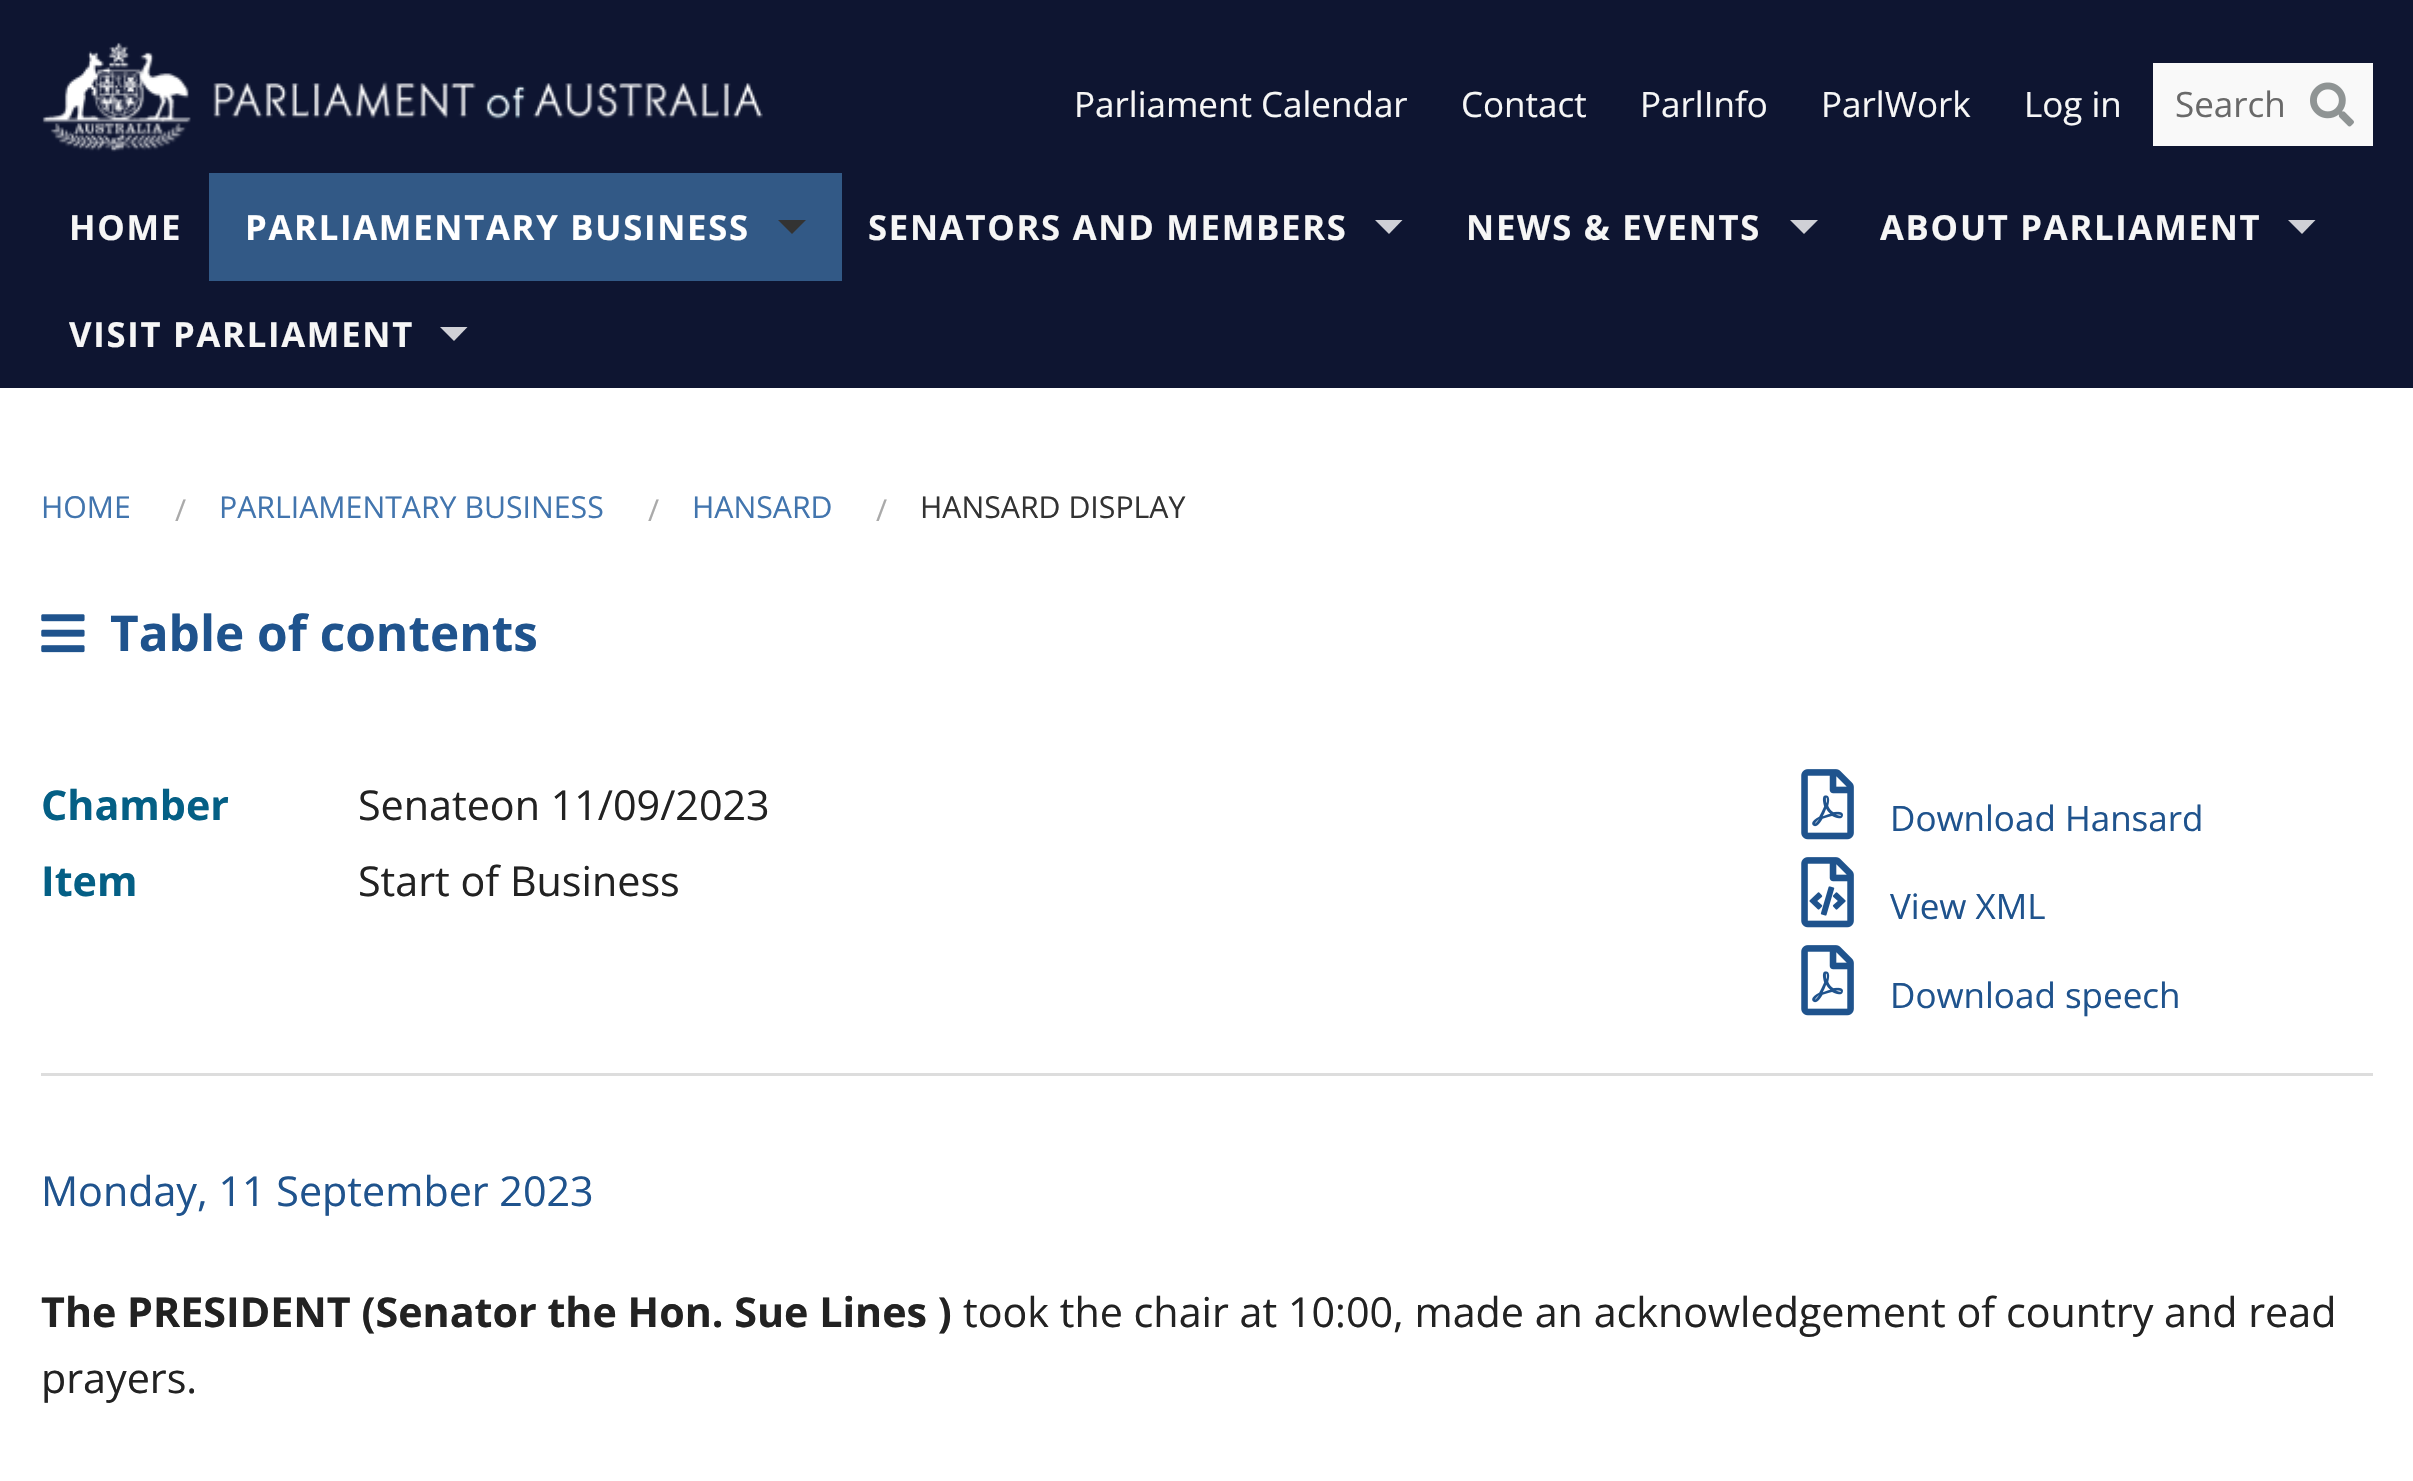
void draw(SkCanvas* canvas) {
    SkPaint paint;
    paint.setAntiAlias(true);
    auto face = [&](const char* family, int weight, float size, bool italic = false) {
        SkFontStyle style(weight, SkFontStyle::kNormal_Width,
            italic ? SkFontStyle::kItalic_Slant : SkFontStyle::kUpright_Slant);
        SkFont result(fontMgr->matchFamilyStyle(family, style), size);
        result.setSubpixel(true);
        return result;
    };
    auto write = [&](const char* s, float x, float y, const SkFont& font, SkColor color) {
        SkPaint ink(SkColor4f::FromColor(color));
        ink.setAntiAlias(true);
        canvas->drawString(s, x, y, font, ink);
    };
    auto writeSpaced = [&](const char* s, float x, float y, const SkFont& font, const SkPaint& ink, float letter, float word) {
        std::vector<SkGlyphID> glyphs(font.countText(s, strlen(s), SkTextEncoding::kUTF8));
        std::vector<float> xs(glyphs.size());
        font.textToGlyphs(s, strlen(s), SkTextEncoding::kUTF8, glyphs);
        font.getXPos(glyphs, xs, x);
        float extra = 0;
        for (size_t i = 0; i < glyphs.size(); i++) {
            xs[i] += extra;
            extra += letter + word * (glyphs[i] == font.unicharToGlyph(' '));
        }
        canvas->drawTextBlob(SkTextBlob::MakeFromPosHGlyphs(glyphs, xs, y, font), 0, 0, ink);
    };
    auto block = [&](float x, float y, float w, float h, SkColor color) {
        SkPaint ink(SkColor4f::FromColor(color));
        ink.setAntiAlias(true);
        canvas->drawRect(SkRect::MakeXYWH(x, y, w, h), ink);
    };
    auto paste = [&](const char* path, float x, float y, float w, float h) {
        auto image = SkImages::DeferredFromEncodedData(SkData::MakeFromFileName(path));
        canvas->drawImageRect(image, SkRect::MakeXYWH(x, y, w, h), SkSamplingOptions());
    };
    canvas->clear(SK_ColorWHITE);
    block(0, 0, 2413, 388, SkColorSetRGB(14, 21, 49));
    paste("pic1.png", 42, 42, 721, 110);
    auto kFont1 = face("Open Sans", 400, 35);
    write("Parliament Calendar", 1074, 117, kFont1, SkColorSetRGB(246, 246, 246));
    write("Contact", 1461, 117, kFont1, SkColorSetRGB(246, 246, 246));
    write("ParlInfo", 1640, 117, kFont1, SkColorSetRGB(246, 246, 246));
    write("ParlWork", 1821, 117, kFont1, SkColorSetRGB(246, 246, 246));
    write("Log in", 2024, 117, kFont1, SkColorSetRGB(246, 246, 246));
    block(2153, 63, 220, 83, SkColorSetRGB(249, 249, 249));
    write("Search", 2175, 117, kFont1, SkColorSetRGB(105, 105, 105));
    paste("pic2.png", 2310, 82, 44, 45);
    auto kFont2 = face("Open Sans", 700, 34.6f);
    paint.setColor(SkColorSetRGB(246, 246, 246));
    writeSpaced("HOME", 69, 240, kFont2, paint, 1.75f, 0);
    block(209, 173, 633, 108, SkColorSetRGB(50, 89, 134));
    paint.setColor(SK_ColorWHITE);
    writeSpaced("PARLIAMENTARY BUSINESS", 245, 240, kFont2, paint, 1.75f, 0);
    paint.setColor(SkColorSetRGB(51, 51, 51));
    canvas->drawPath(SkPathBuilder().moveTo(778, 220).lineTo(806, 220).lineTo(792, 234).close().detach(), paint);
    paint.setColor(SkColorSetRGB(246, 246, 246));
    writeSpaced("SENATORS AND MEMBERS", 868, 240, kFont2, paint, 1.75f, 0);
    paint.setColor(SkColorSetRGB(207, 208, 214));
    canvas->drawPath(SkPathBuilder().moveTo(1375, 220).lineTo(1402.5f, 220).lineTo(1389, 234).close().detach(), paint);
    paint.setColor(SkColorSetRGB(246, 246, 246));
    writeSpaced("NEWS & EVENTS", 1466, 240, kFont2, paint, 1.75f, 0);
    paint.setColor(SkColorSetRGB(207, 208, 214));
    canvas->drawPath(SkPathBuilder().moveTo(1790, 220).lineTo(1818, 220).lineTo(1804, 234).close().detach(), paint);
    paint.setColor(SkColorSetRGB(246, 246, 246));
    writeSpaced("ABOUT PARLIAMENT", 1880, 240, kFont2, paint, 1.75f, 0);
    paint.setColor(SkColorSetRGB(207, 208, 214));
    canvas->drawPath(SkPathBuilder().moveTo(2288, 220).lineTo(2315.5f, 220).lineTo(2302, 234).close().detach(), paint);
    paint.setColor(SkColorSetRGB(246, 246, 246));
    writeSpaced("VISIT PARLIAMENT", 69, 347, kFont2, paint, 1.75f, 0);
    paint.setColor(SkColorSetRGB(207, 208, 214));
    canvas->drawPath(SkPathBuilder().moveTo(440, 327).lineTo(467.5f, 327).lineTo(454, 341).close().detach(), paint);
    auto kFont3 = face("Open Sans", 400, 30.25f);
    write("HOME", 41, 518, kFont3, SkColorSetRGB(66, 117, 174));
    write("/", 175, 521, kFont3, SkColorSetRGB(170, 170, 170));
    write("PARLIAMENTARY BUSINESS", 219, 518, kFont3, SkColorSetRGB(66, 117, 174));
    write("/", 648, 521, kFont3, SkColorSetRGB(170, 170, 170));
    write("HANSARD", 692, 518, kFont3, SkColorSetRGB(66, 117, 174));
    write("/", 876, 521, kFont3, SkColorSetRGB(170, 170, 170));
    write("HANSARD DISPLAY", 920, 518, kFont3, SkColorSetRGB(51, 51, 51));
    paste("pic3.png", 41, 614, 44, 39);
    auto kFont4 = face("Open Sans", 700, 49.5f);
    write("Table of contents", 110, 651, kFont4, SkColorSetRGB(31, 83, 141));
    auto kFont5 = face("Open Sans", 700, 41.25f);
    write("Chamber", 41, 820, kFont5, SkColorSetRGB(4, 95, 133));
    auto kFont6 = face("Open Sans", 400, 41.25f);
    write("Senateon 11/09/2023", 358, 820, kFont6, SkColorSetRGB(34, 34, 34));
    write("Item", 41, 896, kFont5, SkColorSetRGB(4, 95, 133));
    write("Start of Business", 358, 896, kFont6, SkColorSetRGB(34, 34, 34));
    paste("pic4.png", 1801, 769, 53, 71);
    write("Download Hansard", 1890, 831, kFont1, SkColorSetRGB(31, 83, 141));
    paste("pic5.png", 1801, 857, 53, 71);
    write("View XML", 1890, 919, kFont1, SkColorSetRGB(31, 83, 141));
    paste("pic4.png", 1801, 945, 53, 71);
    write("Download speech", 1890, 1008, kFont1, SkColorSetRGB(31, 83, 141));
    block(41, 1073, 2332, 3, SkColorSetRGB(221, 221, 221));
    write("Monday, 11 September 2023", 41, 1206, kFont6, SkColorSetRGB(31, 83, 141));
    write("The PRESIDENT (Senator the Hon. Sue Lines )", 41, 1327, kFont5, SkColorSetRGB(34, 34, 34));
    write("took the chair at 10:00, made an acknowledgement of country and read", 963, 1327, kFont6, SkColorSetRGB(34, 34, 34));
    write("prayers.", 41, 1393, kFont6, SkColorSetRGB(34, 34, 34));
}
